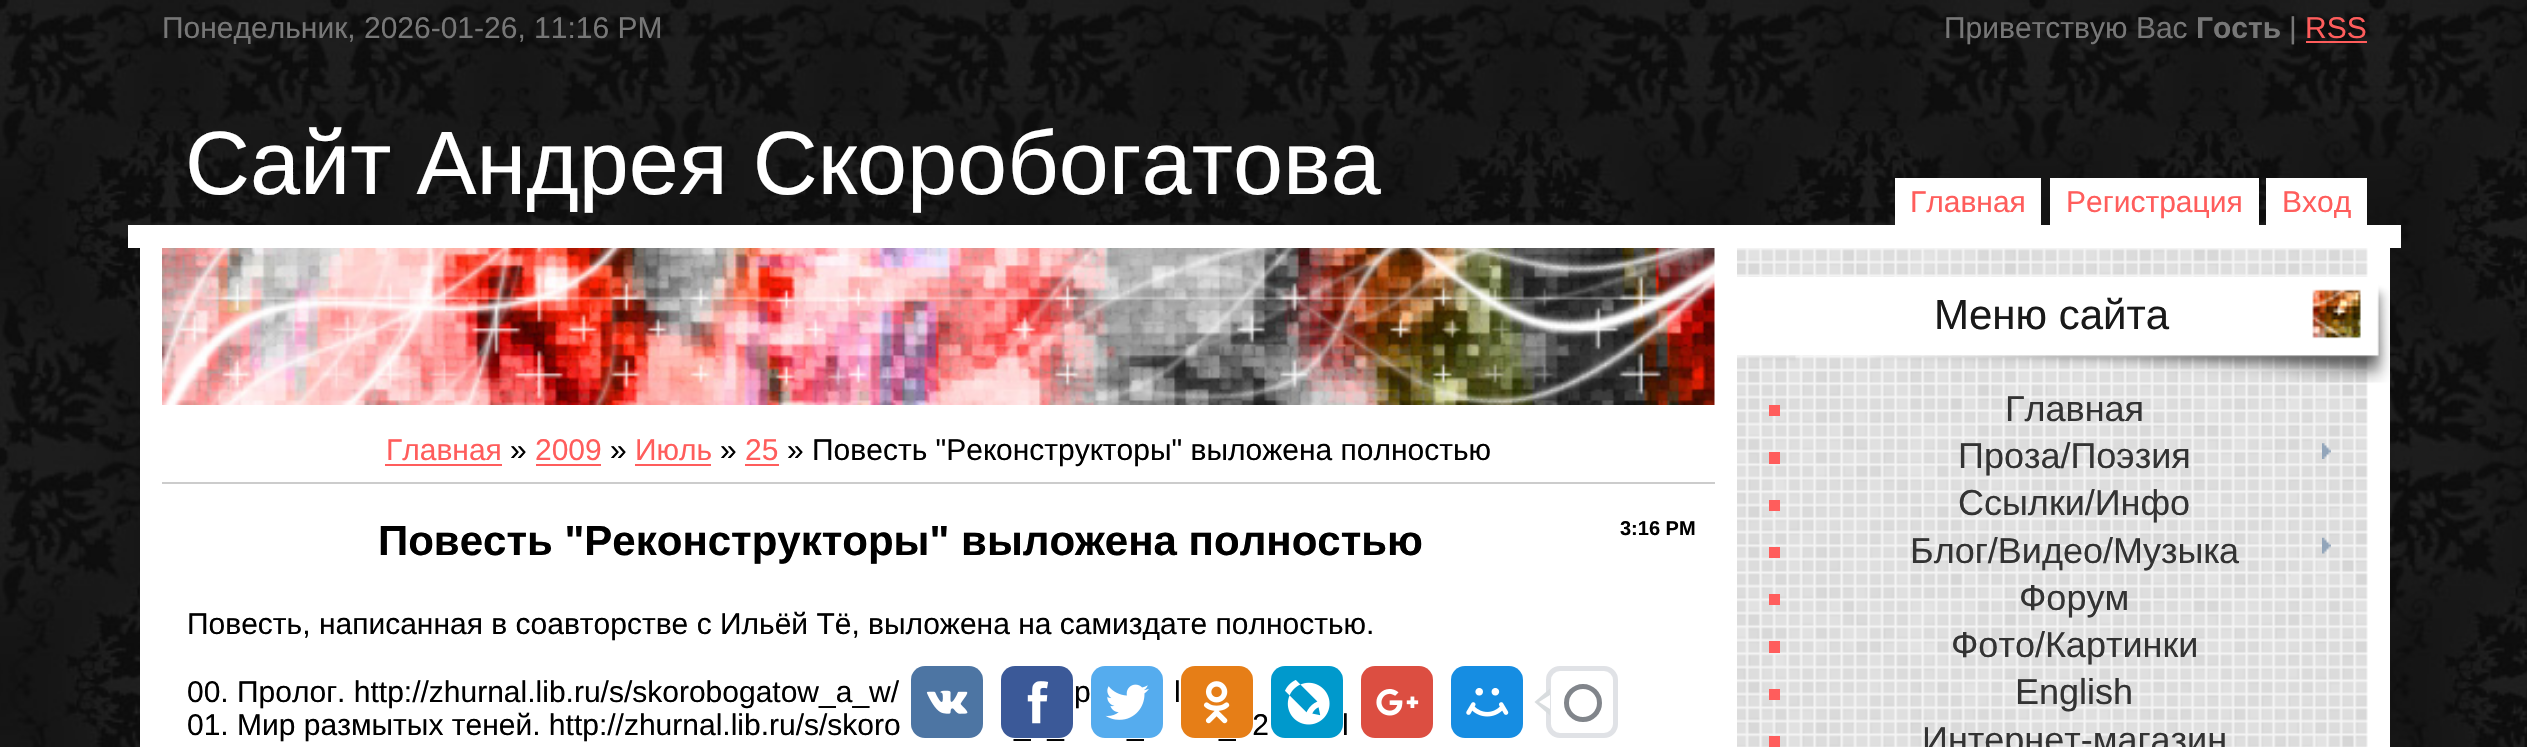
void draw(SkCanvas* canvas) {
    SkPaint paint;
    paint.setAntiAlias(true);
    auto face = [&](const char* family, int weight, float size, bool italic = false) {
        SkFontStyle style(weight, SkFontStyle::kNormal_Width,
            italic ? SkFontStyle::kItalic_Slant : SkFontStyle::kUpright_Slant);
        SkFont result(fontMgr->matchFamilyStyle(family, style), size);
        result.setSubpixel(true);
        return result;
    };
    auto write = [&](const char* s, float x, float y, const SkFont& font, SkColor color) {
        SkPaint ink(SkColor4f::FromColor(color));
        ink.setAntiAlias(true);
        canvas->drawString(s, x, y, font, ink);
    };
    auto block = [&](float x, float y, float w, float h, SkColor color) {
        SkPaint ink(SkColor4f::FromColor(color));
        ink.setAntiAlias(true);
        canvas->drawRect(SkRect::MakeXYWH(x, y, w, h), ink);
    };
    auto card = [&](float x, float y, float w, float h, float radius, SkColor color) {
        SkPaint ink(SkColor4f::FromColor(color));
        ink.setAntiAlias(true);
        canvas->drawRoundRect(SkRect::MakeXYWH(x, y, w, h), radius, radius, ink);
    };
    auto paste = [&](const char* path, float x, float y, float w, float h) {
        auto image = SkImages::DeferredFromEncodedData(SkData::MakeFromFileName(path));
        canvas->drawImageRect(image, SkRect::MakeXYWH(x, y, w, h), SkSamplingOptions());
    };
    canvas->clear(SK_ColorWHITE);
    paste("pic1.png", 0, 0, 2527, 747);
    auto kFont1 = face("Liberation Sans", 400, 30);
    write("Понедельник, 2026-01-26, 11:16 PM", 162, 38, kFont1, SkColorSetRGB(119, 119, 119));
    write("Приветствую Вас", 1944, 38, kFont1, SkColorSetRGB(119, 119, 119));
    auto kFont2 = face("Liberation Sans", 700, 30);
    write("Гость", 2196, 38, kFont2, SkColorSetRGB(119, 119, 119));
    write("|", 2289, 38, kFont1, SkColorSetRGB(119, 119, 119));
    write("RSS", 2305, 38, kFont1, SkColorSetRGB(255, 93, 92));
    block(2306, 41, 61, 2, SkColorSetRGB(255, 93, 92));
    auto kFont3 = face("Liberation Sans", 400, 90);
    write("Сайт Андрея Скоробогатова", 185, 194, kFont3, SK_ColorWHITE);
    block(1895, 178, 146, 47, SK_ColorWHITE);
    write("Главная", 1910, 212, kFont1, SkColorSetRGB(255, 93, 92));
    block(2050, 178, 209, 47, SK_ColorWHITE);
    write("Регистрация", 2066, 212, kFont1, SkColorSetRGB(255, 93, 92));
    block(2266, 178, 101, 47, SK_ColorWHITE);
    write("Вход", 2282, 212, kFont1, SkColorSetRGB(255, 93, 92));
    block(140, 248, 2250, 499, SK_ColorWHITE);
    paste("pic2.png", 162, 248, 1553, 157);
    write("Главная", 386, 460, kFont1, SkColorSetRGB(255, 93, 92));
    block(385, 464, 117, 2, SkColorSetRGB(255, 93, 92));
    write("»", 510, 460, kFont1, SK_ColorBLACK);
    write("2009", 535, 460, kFont1, SkColorSetRGB(255, 93, 92));
    block(536, 464, 65, 2, SkColorSetRGB(255, 93, 92));
    write("»", 610, 460, kFont1, SK_ColorBLACK);
    write("Июль", 635, 460, kFont1, SkColorSetRGB(255, 93, 92));
    block(635, 464, 76, 2, SkColorSetRGB(255, 93, 92));
    write("»", 720, 460, kFont1, SK_ColorBLACK);
    write("25", 745, 460, kFont1, SkColorSetRGB(255, 93, 92));
    block(745, 464, 34, 2, SkColorSetRGB(255, 93, 92));
    write("» Повесть \"Реконструкторы\" выложена полностью", 787, 460, kFont1, SK_ColorBLACK);
    block(162, 482, 1553, 2, SkColorSetRGB(204, 204, 204));
    auto kFont4 = face("Liberation Sans", 700, 42);
    write("Повесть \"Реконструкторы\" выложена полностью", 378, 555, kFont4, SK_ColorBLACK);
    auto kFont5 = face("Liberation Sans", 700, 20);
    write("3:16 PM", 1620, 535, kFont5, SK_ColorBLACK);
    write("Повесть, написанная в соавторстве с Ильёй Тё, выложена на самиздате полностью.", 187, 634, kFont1, SK_ColorBLACK);
    write("00. Пролог. http://zhurnal.lib.ru/s/skorobogatow_a_w/", 187, 702, kFont1, SK_ColorBLACK);
    write("p", 1074, 702, kFont1, SK_ColorBLACK);
    write("l", 1174, 702, kFont1, SK_ColorBLACK);
    write("01. Мир размытых теней. http://zhurnal.lib.ru/s/skoro", 187, 735, kFont1, SK_ColorBLACK);
    write("_a_", 1014, 735, kFont1, SK_ColorBLACK);
    write("_", 1127, 735, kFont1, SK_ColorBLACK);
    write("_02", 1219, 735, kFont1, SK_ColorBLACK);
    write("l", 1342, 735, kFont1, SK_ColorBLACK);
    card(911, 666, 72, 72, 14, SkColorSetRGB(77, 117, 163));
    paste("pic3.png", 926, 690, 42, 24);
    card(1001, 666, 72, 72, 14, SkColorSetRGB(59, 89, 152));
    paste("pic4.png", 1027, 681, 22, 43);
    card(1091, 666, 72, 72, 14, SkColorSetRGB(85, 172, 238));
    paste("pic5.png", 1105, 684, 44, 36);
    card(1181, 666, 72, 72, 14, SkColorSetRGB(230, 126, 23));
    paste("pic6.png", 1203, 681, 27, 43);
    card(1271, 666, 72, 72, 14, SkColorSetRGB(0, 153, 204));
    paste("pic7.png", 1285, 680, 45, 45);
    card(1361, 666, 72, 72, 14, SkColorSetRGB(220, 78, 65));
    paste("pic8.png", 1376, 689, 43, 27);
    card(1451, 666, 72, 72, 14, SkColorSetRGB(22, 141, 226));
    paste("pic9.png", 1466, 688, 43, 29);
    paint.setStyle(SkPaint::kStroke_Style);
    paint.setStrokeWidth(5);
    paint.setColor(SkColorSetRGB(224, 226, 230));
    canvas->drawRoundRect(SkRect::MakeXYWH(1548.5f, 668.5f, 67, 67), 11.5f, 11.5f, paint);
    paint.setStyle(SkPaint::kFill_Style);
    paint.setColor(SkColorSetRGB(216, 220, 222));
    canvas->drawPath(SkPathBuilder().moveTo(1550, 688.5f).lineTo(1550, 715.5f).lineTo(1534.5f, 702).close().detach(), paint);
    paint.setStyle(SkPaint::kStroke_Style);
    paint.setColor(SkColorSetRGB(129, 133, 139));
    canvas->drawCircle(1583, 703, 16.5f, paint);
    paint.setStyle(SkPaint::kFill_Style);
    paint.setColor(SK_ColorWHITE);
    canvas->drawPath(SkPathBuilder().moveTo(1550, 695).lineTo(1550, 709).lineTo(1539, 702).close().detach(), paint);
    paste("pic10.png", 1737, 248, 631, 499);
    block(128, 225, 2273, 23, SK_ColorWHITE);
    paste("pic11.png", 1737, 276, 653, 107);
    auto kFont6 = face("Liberation Sans", 400, 42);
    write("Меню сайта", 1934, 329, kFont6, SkColorSetRGB(25, 25, 25));
    block(1769, 405, 11, 11, SkColorSetRGB(255, 93, 92));
    auto kFont7 = face("Liberation Sans", 400, 36);
    write("Главная", 2005, 421, kFont7, SkColorSetRGB(51, 51, 51));
    block(1769, 452, 11, 12, SkColorSetRGB(255, 93, 92));
    write("Проза/Поэзия", 1958, 468, kFont7, SkColorSetRGB(51, 51, 51));
    paste("pic12.png", 2322, 443, 9, 16);
    block(1769, 500, 11, 11, SkColorSetRGB(255, 93, 92));
    write("Ссылки/Инфо", 1958, 515, kFont7, SkColorSetRGB(51, 51, 51));
    block(1769, 547, 11, 11, SkColorSetRGB(255, 93, 92));
    write("Блог/Видео/Музыка", 1910, 563, kFont7, SkColorSetRGB(51, 51, 51));
    paste("pic13.png", 2322, 537, 9, 17);
    block(1769, 594, 11, 11, SkColorSetRGB(255, 93, 92));
    write("Форум", 2019, 610, kFont7, SkColorSetRGB(51, 51, 51));
    block(1769, 641, 11, 12, SkColorSetRGB(255, 93, 92));
    write("Фото/Картинки", 1951, 657, kFont7, SkColorSetRGB(51, 51, 51));
    block(1769, 689, 11, 11, SkColorSetRGB(255, 93, 92));
    write("English", 2015, 704, kFont7, SkColorSetRGB(51, 51, 51));
    block(1769, 736, 11, 11, SkColorSetRGB(255, 93, 92));
    write("Интернет-магазин", 1922, 752, kFont7, SkColorSetRGB(51, 51, 51));
}
